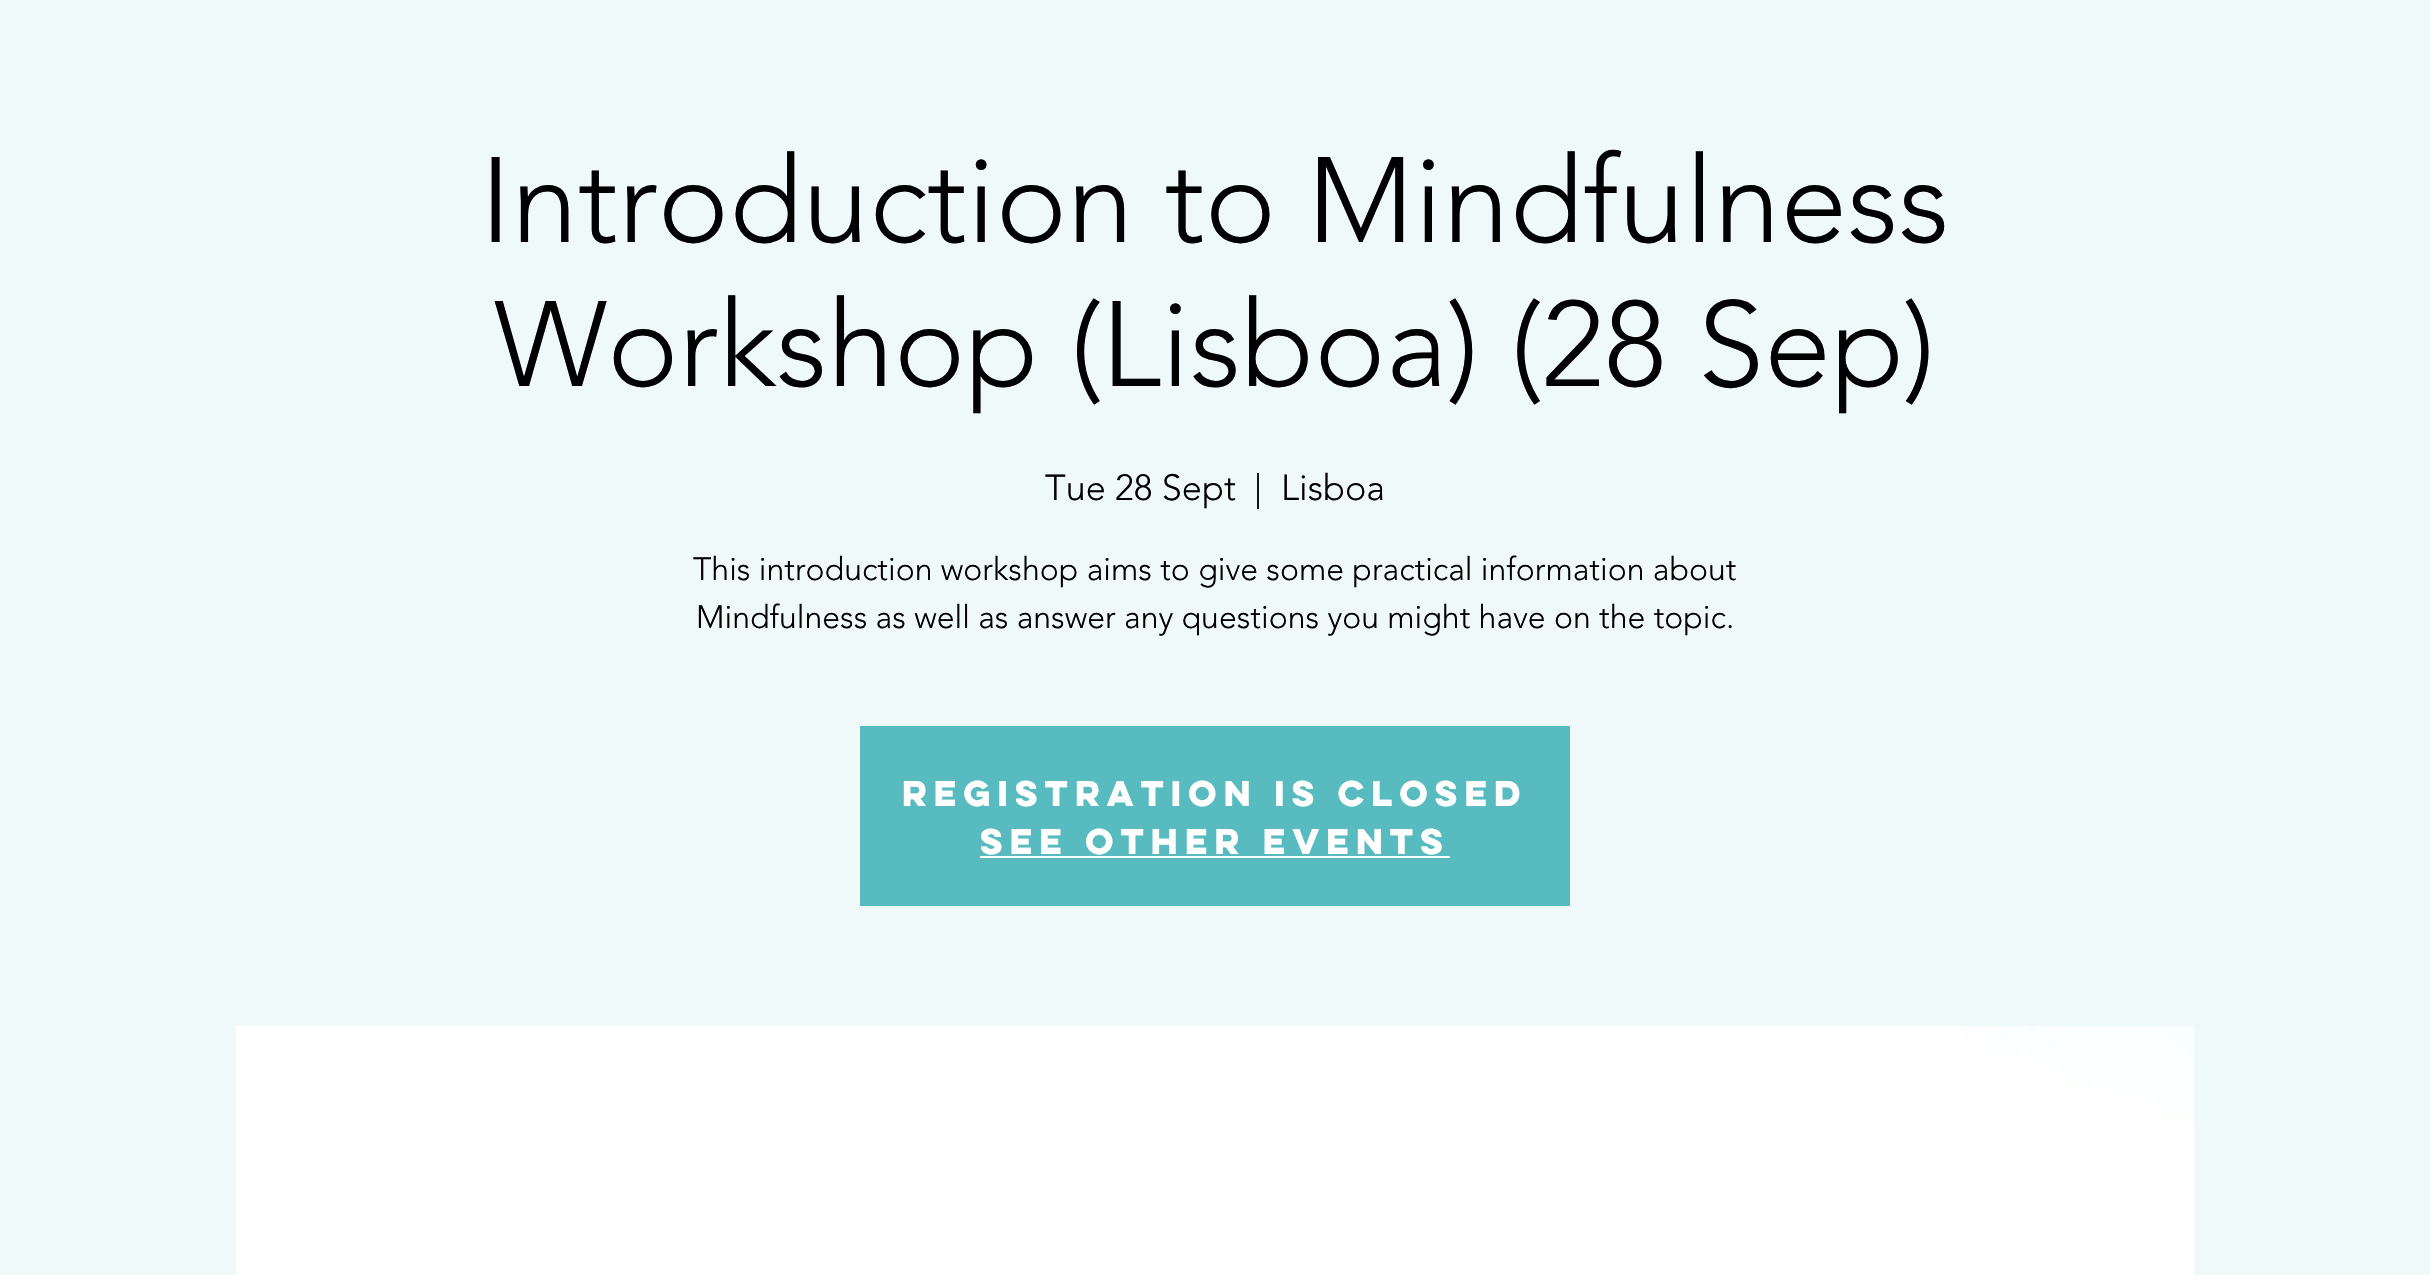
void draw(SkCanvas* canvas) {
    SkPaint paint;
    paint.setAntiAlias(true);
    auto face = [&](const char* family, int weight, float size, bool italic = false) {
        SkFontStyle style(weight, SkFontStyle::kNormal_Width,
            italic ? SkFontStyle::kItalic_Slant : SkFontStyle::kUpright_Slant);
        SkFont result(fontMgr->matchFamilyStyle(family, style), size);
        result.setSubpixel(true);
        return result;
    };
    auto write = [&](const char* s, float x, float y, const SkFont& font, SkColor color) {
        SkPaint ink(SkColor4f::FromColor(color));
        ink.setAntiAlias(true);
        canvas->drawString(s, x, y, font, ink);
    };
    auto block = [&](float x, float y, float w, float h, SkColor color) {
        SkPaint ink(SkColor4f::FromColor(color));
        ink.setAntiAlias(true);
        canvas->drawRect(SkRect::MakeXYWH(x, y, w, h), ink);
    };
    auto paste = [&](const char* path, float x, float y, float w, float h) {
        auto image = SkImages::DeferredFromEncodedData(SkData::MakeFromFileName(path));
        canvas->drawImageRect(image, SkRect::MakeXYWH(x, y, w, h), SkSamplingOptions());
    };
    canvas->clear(SkColorSetRGB(239, 249, 249));
    auto kFont1 = face("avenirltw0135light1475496", 300, 120);
    write("Introduction to Mindfulness", 480, 242, kFont1, SK_ColorBLACK);
    write("Workshop (Lisboa) (28 Sep)", 494, 386, kFont1, SK_ColorBLACK);
    auto kFont2 = face("avenirltw0135light1475496", 300, 36);
    write("Tue 28 Sept", 1045, 500, kFont2, SK_ColorBLACK);
    write("|", 1254, 500, kFont2, SK_ColorBLACK);
    write("Lisboa", 1281, 500, kFont2, SK_ColorBLACK);
    auto kFont3 = face("avenirltw0135light1475496", 300, 32);
    write("This introduction workshop aims to give some practical information about", 693, 580, kFont3, SK_ColorBLACK);
    write("Mindfulness as well as answer any questions you might have on the topic.", 696, 628, kFont3, SK_ColorBLACK);
    block(860, 726, 710, 180, SkColorSetRGB(87, 187, 191));
    auto kFont4 = face("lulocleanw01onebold", 700, 32);
    write("Registration is Closed", 902, 806, kFont4, SK_ColorWHITE);
    write("See other events", 980, 854, kFont4, SK_ColorWHITE);
    block(980, 856, 470, 2, SK_ColorWHITE);
    paste("pic1.png", 236, 1026, 1958, 249);
}
